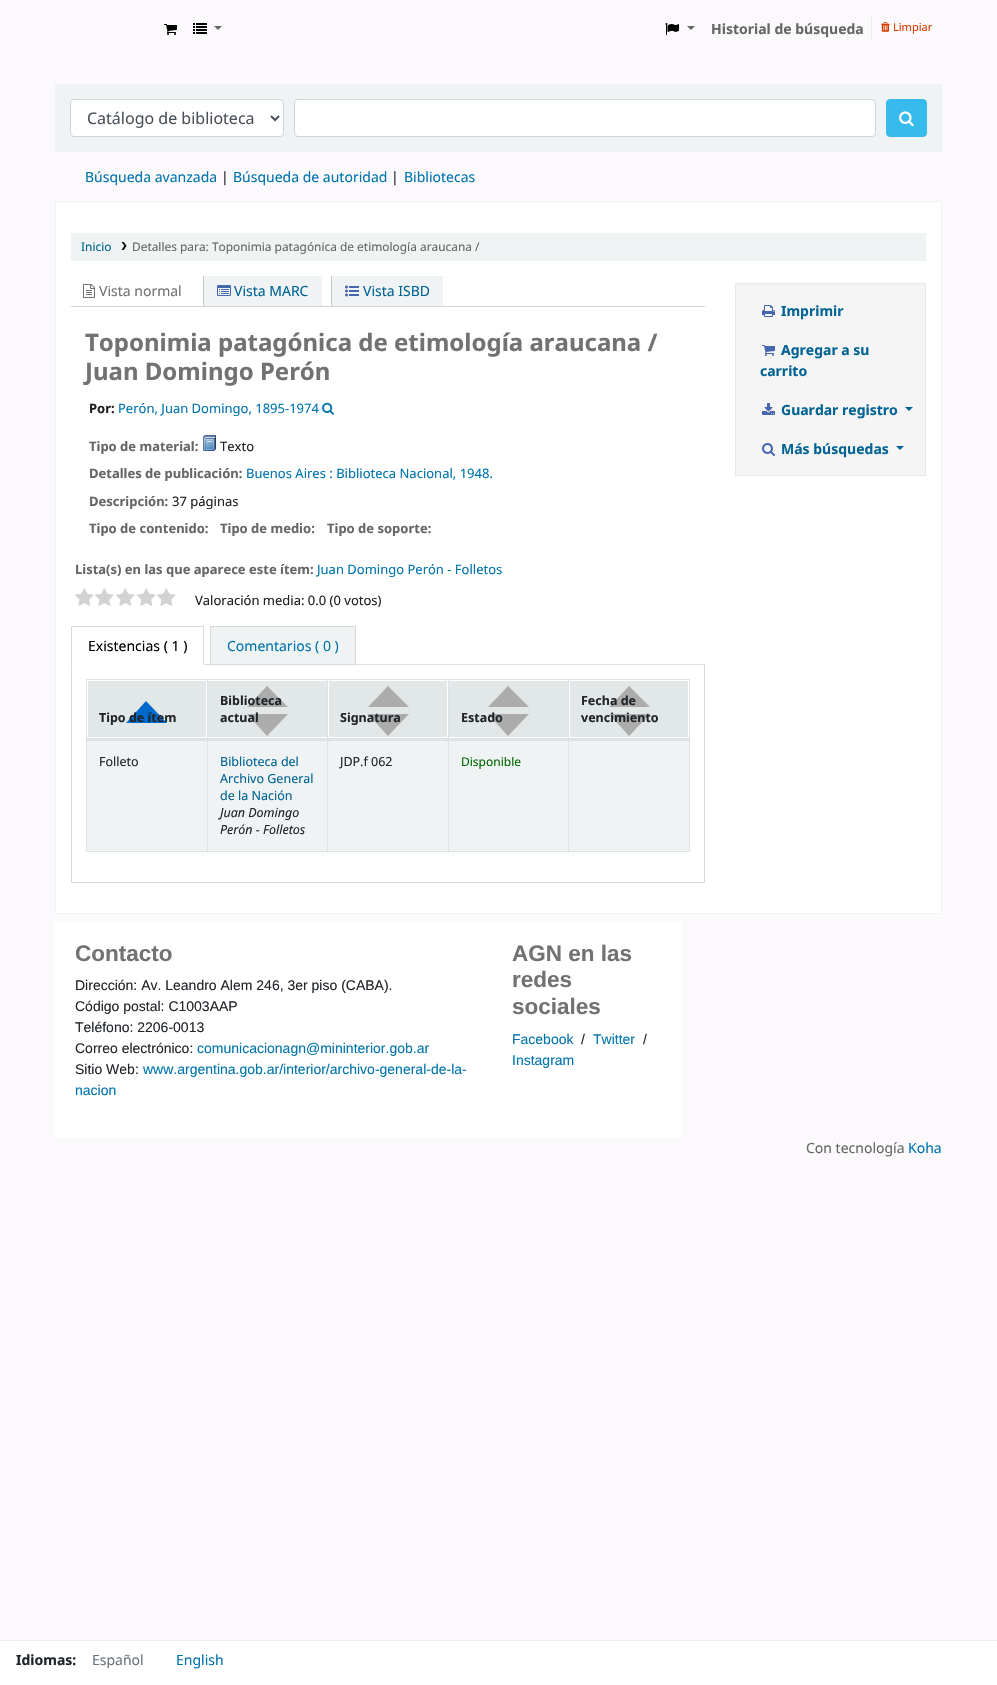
void draw(SkCanvas* canvas) {
    SkPaint paint;
    paint.setAntiAlias(true);
    auto face = [&](const char* family, int weight, float size, bool italic = false) {
        SkFontStyle style(weight, SkFontStyle::kNormal_Width,
            italic ? SkFontStyle::kItalic_Slant : SkFontStyle::kUpright_Slant);
        SkFont result(fontMgr->matchFamilyStyle(family, style), size);
        result.setSubpixel(true);
        return result;
    };
    auto write = [&](const char* s, float x, float y, const SkFont& font, SkColor color) {
        SkPaint ink(SkColor4f::FromColor(color));
        ink.setAntiAlias(true);
        canvas->drawString(s, x, y, font, ink);
    };
    auto block = [&](float x, float y, float w, float h, SkColor color) {
        SkPaint ink(SkColor4f::FromColor(color));
        ink.setAntiAlias(true);
        canvas->drawRect(SkRect::MakeXYWH(x, y, w, h), ink);
    };
    auto paste = [&](const char* path, float x, float y, float w, float h) {
        auto image = SkImages::DeferredFromEncodedData(SkData::MakeFromFileName(path));
        canvas->drawImageRect(image, SkRect::MakeXYWH(x, y, w, h), SkSamplingOptions());
    };
    canvas->clear(SkColorSetRGB(252, 249, 252));
    paste("pic1.png", 164, 24, 13, 11);
    paste("pic2.png", 193, 23, 14, 11);
    paint.setColor(SkColorSetRGB(102, 102, 102));
    canvas->drawPath(SkPathBuilder().moveTo(214, 26).lineTo(222, 26).lineTo(218, 30).close().detach(), paint);
    paste("pic3.png", 665, 23, 14, 12);
    canvas->drawPath(SkPathBuilder().moveTo(687, 26).lineTo(695, 26).lineTo(691, 30).close().detach(), paint);
    auto kFont1 = face("Noto Sans", 700, 14);
    write("Historial de búsqueda", 711, 34, kFont1, SkColorSetRGB(102, 102, 102));
    block(871, 41, 2, 1, SkColorSetRGB(238, 238, 238));
    block(871, 15, 1, 27, SkColorSetRGB(238, 238, 238));
    paste("pic4.png", 881, 22, 9, 10);
    auto kFont2 = face("Noto Sans", 400, 11);
    write("Limpiar", 893, 31, kFont2, SkColorSetRGB(212, 60, 0));
    block(55, 84, 887, 68, SkColorSetRGB(240, 243, 243));
    paint.setColor(SK_ColorWHITE);
    canvas->drawRoundRect(SkRect::MakeXYWH(70.5f, 99.5f, 213, 37), 3.5f, 3.5f, paint);
    paint.setStyle(SkPaint::kStroke_Style);
    paint.setStrokeWidth(1);
    paint.setColor(SkColorSetRGB(206, 212, 218));
    canvas->drawRoundRect(SkRect::MakeXYWH(70.5f, 99.5f, 213, 37), 3.5f, 3.5f, paint);
    paint.setStrokeWidth(2);
    paint.setColor(SkColorSetRGB(73, 80, 87));
    canvas->drawPath(SkPathBuilder().moveTo(271, 116).lineTo(275, 120).lineTo(279, 116).detach(), paint);
    auto kFont3 = face("Noto Sans", 400, 16);
    write("Catálogo de biblioteca", 87, 124, kFont3, SkColorSetRGB(73, 80, 87));
    paint.setStyle(SkPaint::kFill_Style);
    paint.setColor(SK_ColorWHITE);
    canvas->drawRoundRect(SkRect::MakeXYWH(294.5f, 99.5f, 581, 37), 3.5f, 3.5f, paint);
    paint.setStyle(SkPaint::kStroke_Style);
    paint.setStrokeWidth(1);
    paint.setColor(SkColorSetRGB(206, 212, 218));
    canvas->drawRoundRect(SkRect::MakeXYWH(294.5f, 99.5f, 581, 37), 3.5f, 3.5f, paint);
    paint.setStyle(SkPaint::kFill_Style);
    paint.setColor(SkColorSetRGB(55, 187, 237));
    canvas->drawRoundRect(SkRect::MakeXYWH(886.5f, 99.5f, 40, 37), 3.5f, 3.5f, paint);
    paint.setStyle(SkPaint::kStroke_Style);
    canvas->drawRoundRect(SkRect::MakeXYWH(886.5f, 99.5f, 40, 37), 3.5f, 3.5f, paint);
    paste("pic5.png", 899, 111, 15, 16);
    auto kFont4 = face("Noto Sans", 400, 14);
    write("Búsqueda avanzada", 85, 182, kFont4, SkColorSetRGB(0, 116, 173));
    write("|", 221, 182, kFont4, SkColorSetRGB(33, 37, 41));
    write("Búsqueda de autoridad", 233, 182, kFont4, SkColorSetRGB(0, 116, 173));
    write("|", 391, 182, kFont4, SkColorSetRGB(33, 37, 41));
    write("Bibliotecas", 404, 182, kFont4, SkColorSetRGB(0, 116, 173));
    paint.setStyle(SkPaint::kFill_Style);
    paint.setColor(SK_ColorWHITE);
    canvas->drawRect(SkRect::MakeXYWH(55.5f, 201.5f, 886, 712), paint);
    paint.setStyle(SkPaint::kStroke_Style);
    paint.setColor(SkColorSetRGB(240, 243, 243));
    canvas->drawRect(SkRect::MakeXYWH(55.5f, 201.5f, 886, 712), paint);
    block(71, 233, 855, 28, SkColorSetRGB(240, 243, 243));
    auto kFont5 = face("Noto Sans", 400, 11.9f);
    write("Inicio", 81, 251, kFont5, SkColorSetRGB(0, 99, 148));
    paste("pic6.png", 121, 242, 6, 8);
    write("Detalles para: Toponimia patagónica de etimología araucana /", 132, 251, kFont5, SkColorSetRGB(102, 102, 102));
    block(71, 306, 634, 1, SkColorSetRGB(214, 214, 214));
    paste("pic7.png", 83, 284, 12, 14);
    write("Vista normal", 99, 296, kFont4, SkColorSetRGB(114, 114, 114));
    block(204, 276, 118, 30, SkColorSetRGB(240, 243, 243));
    block(203, 276, 1, 30, SkColorSetRGB(201, 201, 201));
    paste("pic8.png", 217, 285, 14, 11);
    write("Vista MARC", 234, 296, kFont4, SkColorSetRGB(0, 99, 148));
    block(332, 276, 111, 30, SkColorSetRGB(240, 243, 243));
    block(331, 276, 1, 30, SkColorSetRGB(201, 201, 201));
    paste("pic9.png", 345, 285, 14, 12);
    write("Vista ISBD", 363, 296, kFont4, SkColorSetRGB(0, 99, 148));
    auto kFont6 = face("Noto Sans", 700, 24);
    write("Toponimia patagónica de etimología araucana /", 85, 351, kFont6, SkColorSetRGB(114, 114, 114));
    write("Juan Domingo Perón", 85, 380, kFont6, SkColorSetRGB(114, 114, 114));
    auto kFont7 = face("Noto Sans", 700, 13);
    write("Por:", 89, 413, kFont7, SkColorSetRGB(32, 32, 32));
    auto kFont8 = face("Noto Sans", 400, 13);
    write("Perón, Juan Domingo, 1895-1974", 118, 413, kFont8, SkColorSetRGB(0, 116, 173));
    paste("pic10.png", 322, 402, 12, 13);
    write("Tipo de material:", 89, 451, kFont7, SkColorSetRGB(102, 102, 102));
    paste("pic11.png", 203, 435, 13, 16);
    write("Texto", 220, 451, kFont8, SkColorSetRGB(32, 32, 32));
    write("Detalles de publicación:", 89, 478, kFont7, SkColorSetRGB(102, 102, 102));
    write("Buenos Aires : Biblioteca Nacional, 1948.", 246, 478, kFont8, SkColorSetRGB(0, 116, 173));
    write("Descripción:", 89, 506, kFont7, SkColorSetRGB(102, 102, 102));
    write("37 páginas", 172, 506, kFont8, SkColorSetRGB(32, 32, 32));
    write("Tipo de contenido:", 89, 533, kFont7, SkColorSetRGB(102, 102, 102));
    write("Tipo de medio:", 220, 533, kFont7, SkColorSetRGB(102, 102, 102));
    write("Tipo de soporte:", 327, 533, kFont7, SkColorSetRGB(102, 102, 102));
    write("Lista(s) en las que aparece este ítem:", 75, 574, kFont7, SkColorSetRGB(102, 102, 102));
    write("Juan Domingo Perón - Folletos", 317, 574, kFont8, SkColorSetRGB(0, 116, 173));
    paste("pic12.png", 75, 588, 19, 18);
    paste("pic12.png", 95, 588, 19, 18);
    paste("pic12.png", 116, 588, 19, 18);
    paste("pic12.png", 137, 588, 19, 18);
    paste("pic12.png", 157, 588, 19, 18);
    write("Valoración media: 0.0 (0 votos)", 195, 605, kFont8, SkColorSetRGB(32, 32, 32));
    block(204, 664, 501, 1, SkColorSetRGB(222, 226, 230));
    block(71, 626, 133, 1, SkColorSetRGB(216, 216, 216));
    paint.setStyle(SkPaint::kFill_Style);
    paint.setColor(SkColorSetRGB(216, 216, 216));
    canvas->drawPath(SkPathBuilder().moveTo(204, 626).lineTo(204, 665).lineTo(203, 664).lineTo(203, 627).close().detach(), paint);
    canvas->drawPath(SkPathBuilder().moveTo(71, 665).lineTo(71, 626).lineTo(72, 627).lineTo(72, 664).close().detach(), paint);
    write("Existencias ( 1 )", 88, 651, kFont4, SK_ColorBLACK);
    paint.setColor(SkColorSetRGB(240, 243, 243));
    canvas->drawRect(SkRect::MakeXYWH(210.5f, 626.5f, 145, 38), paint);
    paint.setStyle(SkPaint::kStroke_Style);
    paint.setColor(SkColorSetRGB(216, 216, 216));
    canvas->drawRect(SkRect::MakeXYWH(210.5f, 626.5f, 145, 38), paint);
    write("Comentarios ( 0 )", 227, 651, kFont4, SkColorSetRGB(0, 116, 173));
    block(704, 665, 1, 218, SkColorSetRGB(216, 216, 216));
    block(71, 882, 634, 1, SkColorSetRGB(216, 216, 216));
    block(71, 665, 1, 218, SkColorSetRGB(216, 216, 216));
    block(86, 679, 604, 1, SkColorSetRGB(222, 226, 230));
    block(689, 679, 1, 173, SkColorSetRGB(222, 226, 230));
    block(86, 851, 604, 1, SkColorSetRGB(222, 226, 230));
    block(86, 679, 1, 173, SkColorSetRGB(222, 226, 230));
    block(88, 681, 118, 56, SkColorSetRGB(226, 232, 232));
    paint.setStyle(SkPaint::kFill_Style);
    paint.setColor(SkColorSetRGB(0, 106, 204));
    canvas->drawPath(SkPathBuilder().moveTo(167, 723).lineTo(126, 723).lineTo(146, 701).close().detach(), paint);
    auto kFont9 = face("Noto Sans", 700, 12.5f);
    write("Tipo de ítem", 99, 722, kFont9, SkColorSetRGB(33, 37, 41));
    block(208, 681, 119, 56, SkColorSetRGB(226, 232, 232));
    paint.setColor(SkColorSetRGB(172, 172, 172));
    canvas->drawPath(SkPathBuilder().moveTo(288, 714).lineTo(247, 714).lineTo(267, 736).close().moveTo(288, 707).lineTo(247, 707).lineTo(267, 686).close().detach(), paint);
    write("Biblioteca", 220, 705, kFont9, SkColorSetRGB(33, 37, 41));
    write("actual", 220, 722, kFont9, SkColorSetRGB(33, 37, 41));
    block(329, 681, 118, 56, SkColorSetRGB(226, 232, 232));
    canvas->drawPath(SkPathBuilder().moveTo(409, 714).lineTo(368, 714).lineTo(388, 736).close().moveTo(409, 707).lineTo(368, 707).lineTo(388, 686).close().detach(), paint);
    write("Signatura", 340, 722, kFont9, SkColorSetRGB(33, 37, 41));
    block(449, 681, 119, 56, SkColorSetRGB(226, 232, 232));
    canvas->drawPath(SkPathBuilder().moveTo(529, 714).lineTo(488, 714).lineTo(508, 736).close().moveTo(529, 707).lineTo(488, 707).lineTo(508, 686).close().detach(), paint);
    write("Estado", 461, 722, kFont9, SkColorSetRGB(33, 37, 41));
    block(570, 681, 118, 56, SkColorSetRGB(226, 232, 232));
    canvas->drawPath(SkPathBuilder().moveTo(650, 714).lineTo(609, 714).lineTo(629, 736).close().moveTo(650, 707).lineTo(609, 707).lineTo(629, 686).close().detach(), paint);
    block(568, 740, 122, 1, SkColorSetRGB(222, 226, 230));
    block(568, 679, 1, 173, SkColorSetRGB(222, 226, 230));
    block(448, 740, 121, 1, SkColorSetRGB(222, 226, 230));
    block(448, 679, 1, 173, SkColorSetRGB(222, 226, 230));
    block(327, 740, 122, 1, SkColorSetRGB(222, 226, 230));
    block(327, 679, 1, 173, SkColorSetRGB(222, 226, 230));
    block(207, 740, 121, 1, SkColorSetRGB(222, 226, 230));
    block(207, 679, 1, 173, SkColorSetRGB(222, 226, 230));
    block(86, 738, 604, 2, SkColorSetRGB(222, 226, 230));
    write("Fecha de", 581, 705, kFont9, SkColorSetRGB(33, 37, 41));
    write("vencimiento", 581, 722, kFont9, SkColorSetRGB(33, 37, 41));
    block(87, 741, 120, 110, SkColorSetRGB(240, 243, 243));
    block(86, 740, 122, 1, SkColorSetRGB(222, 226, 230));
    auto kFont10 = face("Noto Sans", 400, 12.5f);
    write("Folleto", 99, 766, kFont10, SkColorSetRGB(33, 37, 41));
    block(208, 741, 119, 110, SkColorSetRGB(240, 243, 243));
    write("Biblioteca del", 220, 766, kFont10, SkColorSetRGB(0, 99, 148));
    write("Archivo General", 220, 783, kFont10, SkColorSetRGB(0, 99, 148));
    write("de la Nación", 220, 800, kFont10, SkColorSetRGB(0, 99, 148));
    auto kFont11 = face("Noto Sans", 400, 12.5f, true);
    write("Juan Domingo", 220, 817, kFont11, SkColorSetRGB(33, 37, 41));
    write("Perón - Folletos", 220, 834, kFont11, SkColorSetRGB(33, 37, 41));
    block(328, 741, 120, 110, SkColorSetRGB(240, 243, 243));
    write("JDP.f 062", 340, 766, kFont10, SkColorSetRGB(33, 37, 41));
    block(449, 741, 119, 110, SkColorSetRGB(240, 243, 243));
    auto kFont12 = face("Noto Sans", 400, 12);
    write("Disponible", 461, 766, kFont12, SkColorSetRGB(0, 102, 0));
    block(569, 741, 120, 110, SkColorSetRGB(240, 243, 243));
    paint.setColor(SkColorSetRGB(245, 245, 245));
    canvas->drawRect(SkRect::MakeXYWH(735.5f, 283.5f, 190, 192), paint);
    paint.setStyle(SkPaint::kStroke_Style);
    paint.setColor(SkColorSetRGB(232, 232, 232));
    canvas->drawRect(SkRect::MakeXYWH(735.5f, 283.5f, 190, 192), paint);
    paste("pic13.png", 762, 305, 13, 12);
    write("Imprimir", 781, 316, kFont1, SkColorSetRGB(0, 99, 148));
    paste("pic14.png", 762, 345, 13, 11);
    write("Agregar a su", 781, 355, kFont1, SkColorSetRGB(0, 99, 148));
    write("carrito", 760, 376, kFont1, SkColorSetRGB(0, 99, 148));
    paste("pic15.png", 762, 403, 13, 12);
    write("Guardar registro", 781, 415, kFont1, SkColorSetRGB(0, 99, 148));
    paint.setStyle(SkPaint::kFill_Style);
    paint.setColor(SkColorSetRGB(0, 99, 148));
    canvas->drawPath(SkPathBuilder().moveTo(905, 407).lineTo(913, 407).lineTo(909, 411).close().detach(), paint);
    paste("pic16.png", 762, 443, 13, 13);
    write("Más búsquedas", 781, 454, kFont1, SkColorSetRGB(0, 99, 148));
    canvas->drawPath(SkPathBuilder().moveTo(896, 446).lineTo(904, 446).lineTo(900, 450).close().detach(), paint);
    block(55, 921, 626, 216, SK_ColorWHITE);
    auto kFont13 = face("Liberation Sans", 700, 22.5f);
    write("Contacto", 75, 961, kFont13, SkColorSetRGB(114, 114, 114));
    auto kFont14 = face("Liberation Sans", 400, 14);
    write("Dirección: Av. Leandro Alem 246, 3er piso (CABA).", 75, 990, kFont14, SkColorSetRGB(33, 37, 41));
    write("Código postal: C1003AAP", 75, 1011, kFont14, SkColorSetRGB(33, 37, 41));
    write("Teléfono: 2206-0013", 75, 1032, kFont14, SkColorSetRGB(33, 37, 41));
    write("Correo electrónico:", 75, 1053, kFont14, SkColorSetRGB(33, 37, 41));
    write("comunicacionagn@mininterior.gob.ar", 197, 1053, kFont14, SkColorSetRGB(0, 116, 173));
    write("Sitio Web:", 75, 1074, kFont14, SkColorSetRGB(33, 37, 41));
    write("www.argentina.gob.ar/interior/archivo-general-de-la-", 143, 1074, kFont14, SkColorSetRGB(0, 116, 173));
    write("nacion", 75, 1095, kFont14, SkColorSetRGB(0, 116, 173));
    write("AGN en las", 512, 961, kFont13, SkColorSetRGB(114, 114, 114));
    write("redes", 512, 987, kFont13, SkColorSetRGB(114, 114, 114));
    write("sociales", 512, 1014, kFont13, SkColorSetRGB(114, 114, 114));
    write("Facebook", 512, 1044, kFont14, SkColorSetRGB(0, 116, 173));
    write("/", 581, 1044, kFont14, SkColorSetRGB(33, 37, 41));
    write("Twitter", 593, 1044, kFont14, SkColorSetRGB(0, 116, 173));
    write("/", 643, 1044, kFont14, SkColorSetRGB(33, 37, 41));
    write("Instagram", 512, 1065, kFont14, SkColorSetRGB(0, 116, 173));
    write("Con tecnología", 806, 1153, kFont4, SkColorSetRGB(102, 102, 102));
    write("Koha", 908, 1153, kFont4, SkColorSetRGB(0, 116, 173));
    block(0, 1641, 997, 44, SK_ColorWHITE);
    block(0, 1640, 997, 1, SkColorSetRGB(238, 238, 238));
    write("Idiomas:", 16, 1665, kFont1, SkColorSetRGB(33, 37, 41));
    write("Español", 92, 1665, kFont4, SkColorSetRGB(108, 117, 125));
    write("English", 176, 1665, kFont4, SkColorSetRGB(0, 116, 173));
}
